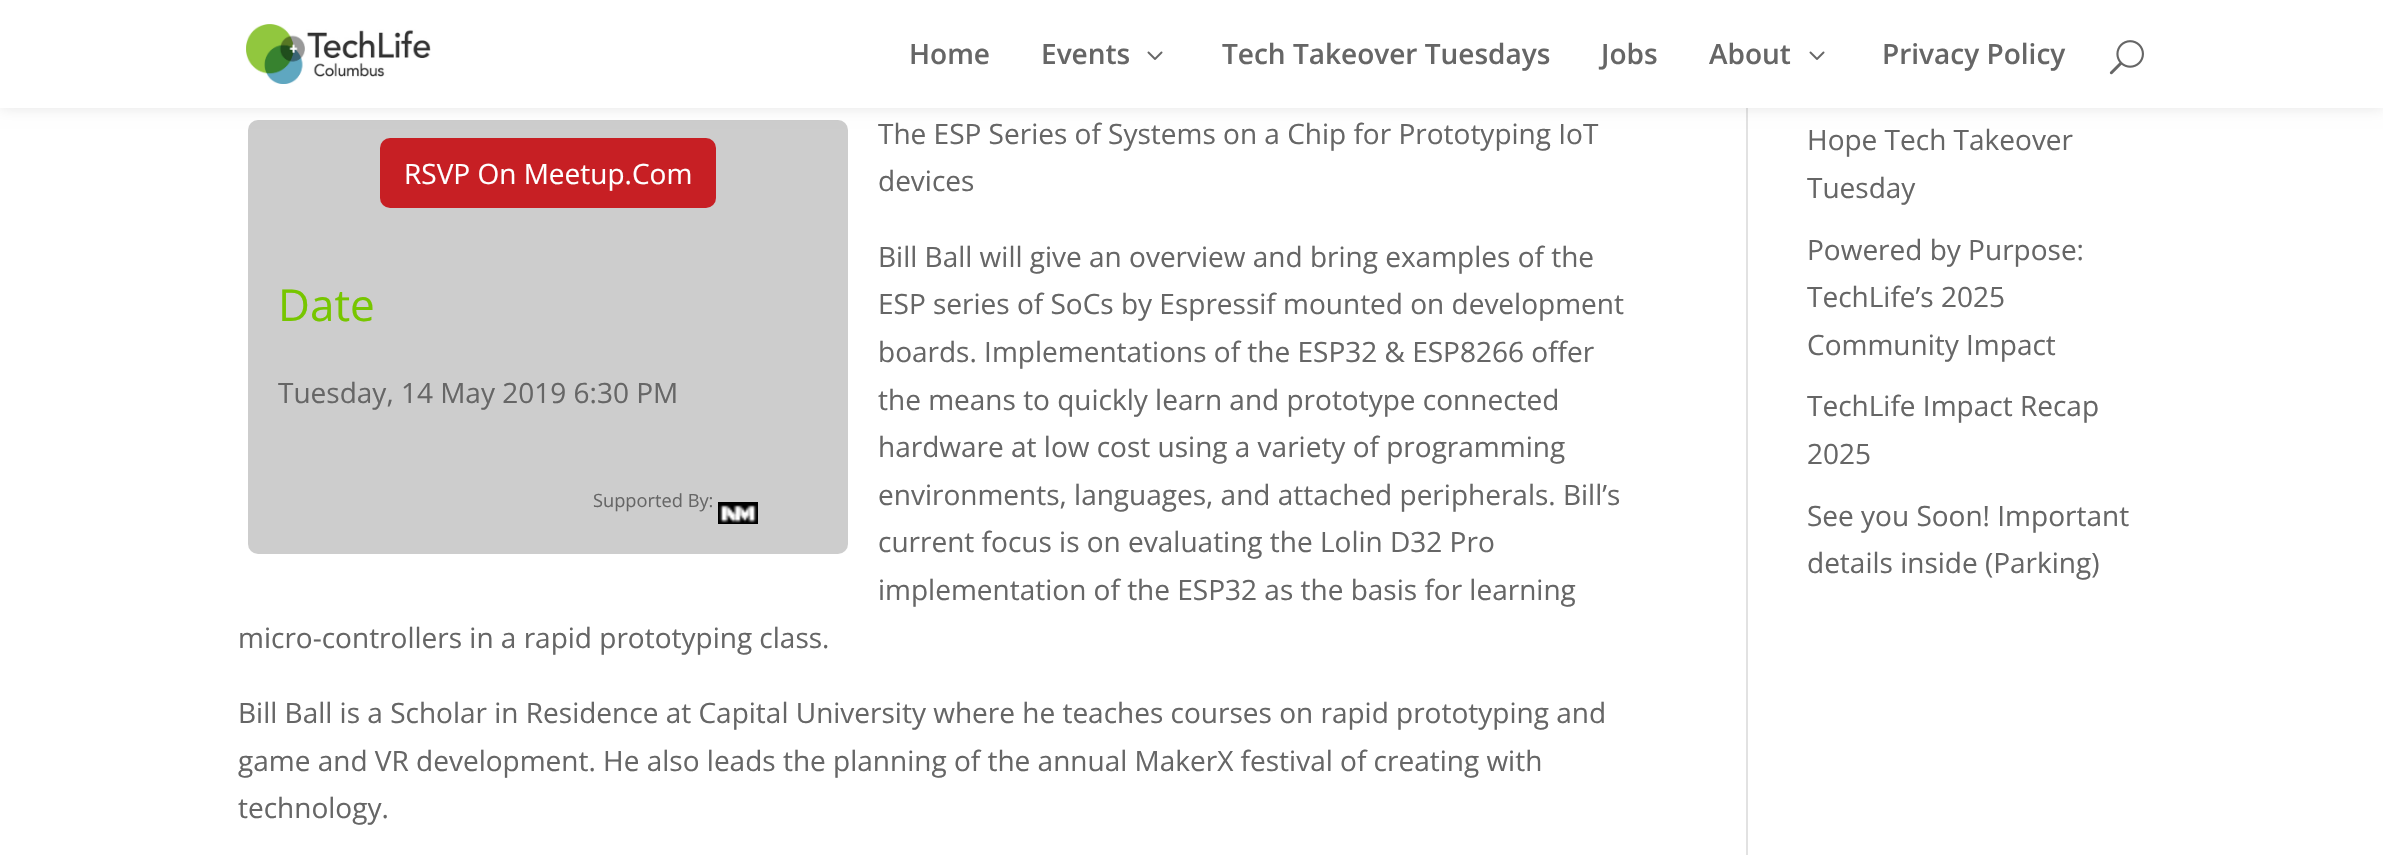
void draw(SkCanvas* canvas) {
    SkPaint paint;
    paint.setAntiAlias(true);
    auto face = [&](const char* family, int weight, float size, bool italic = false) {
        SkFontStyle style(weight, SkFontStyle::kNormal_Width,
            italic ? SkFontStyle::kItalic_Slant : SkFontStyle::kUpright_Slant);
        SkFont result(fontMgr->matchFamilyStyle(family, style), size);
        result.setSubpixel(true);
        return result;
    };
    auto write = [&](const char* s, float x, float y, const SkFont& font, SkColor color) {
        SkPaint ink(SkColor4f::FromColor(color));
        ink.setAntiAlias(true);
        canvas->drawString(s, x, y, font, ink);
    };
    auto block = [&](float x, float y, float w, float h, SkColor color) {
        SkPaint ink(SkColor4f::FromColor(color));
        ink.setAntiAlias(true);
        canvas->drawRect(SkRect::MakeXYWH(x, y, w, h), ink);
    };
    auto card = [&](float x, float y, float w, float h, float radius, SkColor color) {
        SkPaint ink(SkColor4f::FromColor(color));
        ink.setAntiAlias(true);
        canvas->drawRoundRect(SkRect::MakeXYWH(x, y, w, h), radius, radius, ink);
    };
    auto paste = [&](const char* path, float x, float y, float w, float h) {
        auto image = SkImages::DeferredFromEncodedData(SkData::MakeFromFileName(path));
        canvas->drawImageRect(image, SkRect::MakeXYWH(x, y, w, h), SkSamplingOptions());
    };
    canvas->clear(SK_ColorWHITE);
    block(1746, 108, 2, 747, SkColorSetRGB(226, 226, 226));
    card(248, 120, 600, 434, 10, SkColorSetRGB(205, 205, 205));
    paint.setColor(SkColorSetARGB(26, 0, 0, 0));
    paint.setMaskFilter(SkMaskFilter::MakeBlur(kNormal_SkBlurStyle, 7));
    canvas->drawRect(SkRect::MakeXYWH(0, 0, 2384, 108), paint);
    paint.setMaskFilter(nullptr);
    block(0, 0, 2383, 108, SK_ColorWHITE);
    paste("pic1.png", 246, 24, 185, 60);
    auto kFont1 = face("Open Sans", 600, 28);
    write("Home", 909, 64, kFont1, SkColorSetRGB(102, 102, 102));
    write("Events", 1041, 64, kFont1, SkColorSetRGB(102, 102, 102));
    paste("pic2.png", 1147, 51, 16, 9);
    write("Tech Takeover Tuesdays", 1222, 64, kFont1, SkColorSetRGB(102, 102, 102));
    write("Jobs", 1601, 64, kFont1, SkColorSetRGB(102, 102, 102));
    write("About", 1709, 64, kFont1, SkColorSetRGB(102, 102, 102));
    paste("pic2.png", 1809, 51, 16, 9);
    write("Privacy Policy", 1882, 64, kFont1, SkColorSetRGB(102, 102, 102));
    paste("pic3.png", 2109, 40, 35, 35);
    card(380, 138, 336, 70, 10, SkColorSetRGB(199, 31, 36));
    auto kFont2 = face("Open Sans", 400, 28);
    write("RSVP On Meetup.Com", 404, 184, kFont2, SK_ColorWHITE);
    auto kFont3 = face("Open Sans", 400, 44);
    write("Date", 278, 321, kFont3, SkColorSetRGB(119, 198, 0));
    write("Tuesday, 14 May 2019 6:30 PM", 278, 403, kFont2, SkColorSetRGB(102, 102, 102));
    auto kFont4 = face("Open Sans", 400, 18.25f);
    write("Supported By:", 593, 507, kFont4, SkColorSetRGB(102, 102, 102));
    paste("pic4.png", 718, 502, 40, 22);
    write("The ESP Series of Systems on a Chip for Prototyping IoT", 878, 144, kFont2, SkColorSetRGB(102, 102, 102));
    write("devices", 878, 191, kFont2, SkColorSetRGB(102, 102, 102));
    write("Bill Ball will give an overview and bring examples of the", 878, 267, kFont2, SkColorSetRGB(102, 102, 102));
    write("ESP series of SoCs by Espressif mounted on development", 878, 314, kFont2, SkColorSetRGB(102, 102, 102));
    write("boards. Implementations of the ESP32 & ESP8266 offer", 878, 362, kFont2, SkColorSetRGB(102, 102, 102));
    write("the means to quickly learn and prototype connected", 878, 410, kFont2, SkColorSetRGB(102, 102, 102));
    write("hardware at low cost using a variety of programming", 878, 457, kFont2, SkColorSetRGB(102, 102, 102));
    write("environments, languages, and attached peripherals. Bill’s", 878, 505, kFont2, SkColorSetRGB(102, 102, 102));
    write("current focus is on evaluating the Lolin D32 Pro", 878, 552, kFont2, SkColorSetRGB(102, 102, 102));
    write("implementation of the ESP32 as the basis for learning", 878, 600, kFont2, SkColorSetRGB(102, 102, 102));
    write("micro-controllers in a rapid prototyping class.", 238, 648, kFont2, SkColorSetRGB(102, 102, 102));
    write("Bill Ball is a Scholar in Residence at Capital University where he teaches courses on rapid prototyping and", 238, 723, kFont2, SkColorSetRGB(102, 102, 102));
    write("game and VR development. He also leads the planning of the annual MakerX festival of creating with", 238, 771, kFont2, SkColorSetRGB(102, 102, 102));
    write("technology.", 238, 818, kFont2, SkColorSetRGB(102, 102, 102));
    write("Hope Tech Takeover", 1807, 150, kFont2, SkColorSetRGB(102, 102, 102));
    write("Tuesday", 1807, 198, kFont2, SkColorSetRGB(102, 102, 102));
    write("Powered by Purpose:", 1807, 260, kFont2, SkColorSetRGB(102, 102, 102));
    write("TechLife’s 2025", 1807, 307, kFont2, SkColorSetRGB(102, 102, 102));
    write("Community Impact", 1807, 355, kFont2, SkColorSetRGB(102, 102, 102));
    write("TechLife Impact Recap", 1807, 416, kFont2, SkColorSetRGB(102, 102, 102));
    write("2025", 1807, 464, kFont2, SkColorSetRGB(102, 102, 102));
    write("See you Soon! Important", 1807, 526, kFont2, SkColorSetRGB(102, 102, 102));
    write("details inside (Parking)", 1807, 573, kFont2, SkColorSetRGB(102, 102, 102));
}
